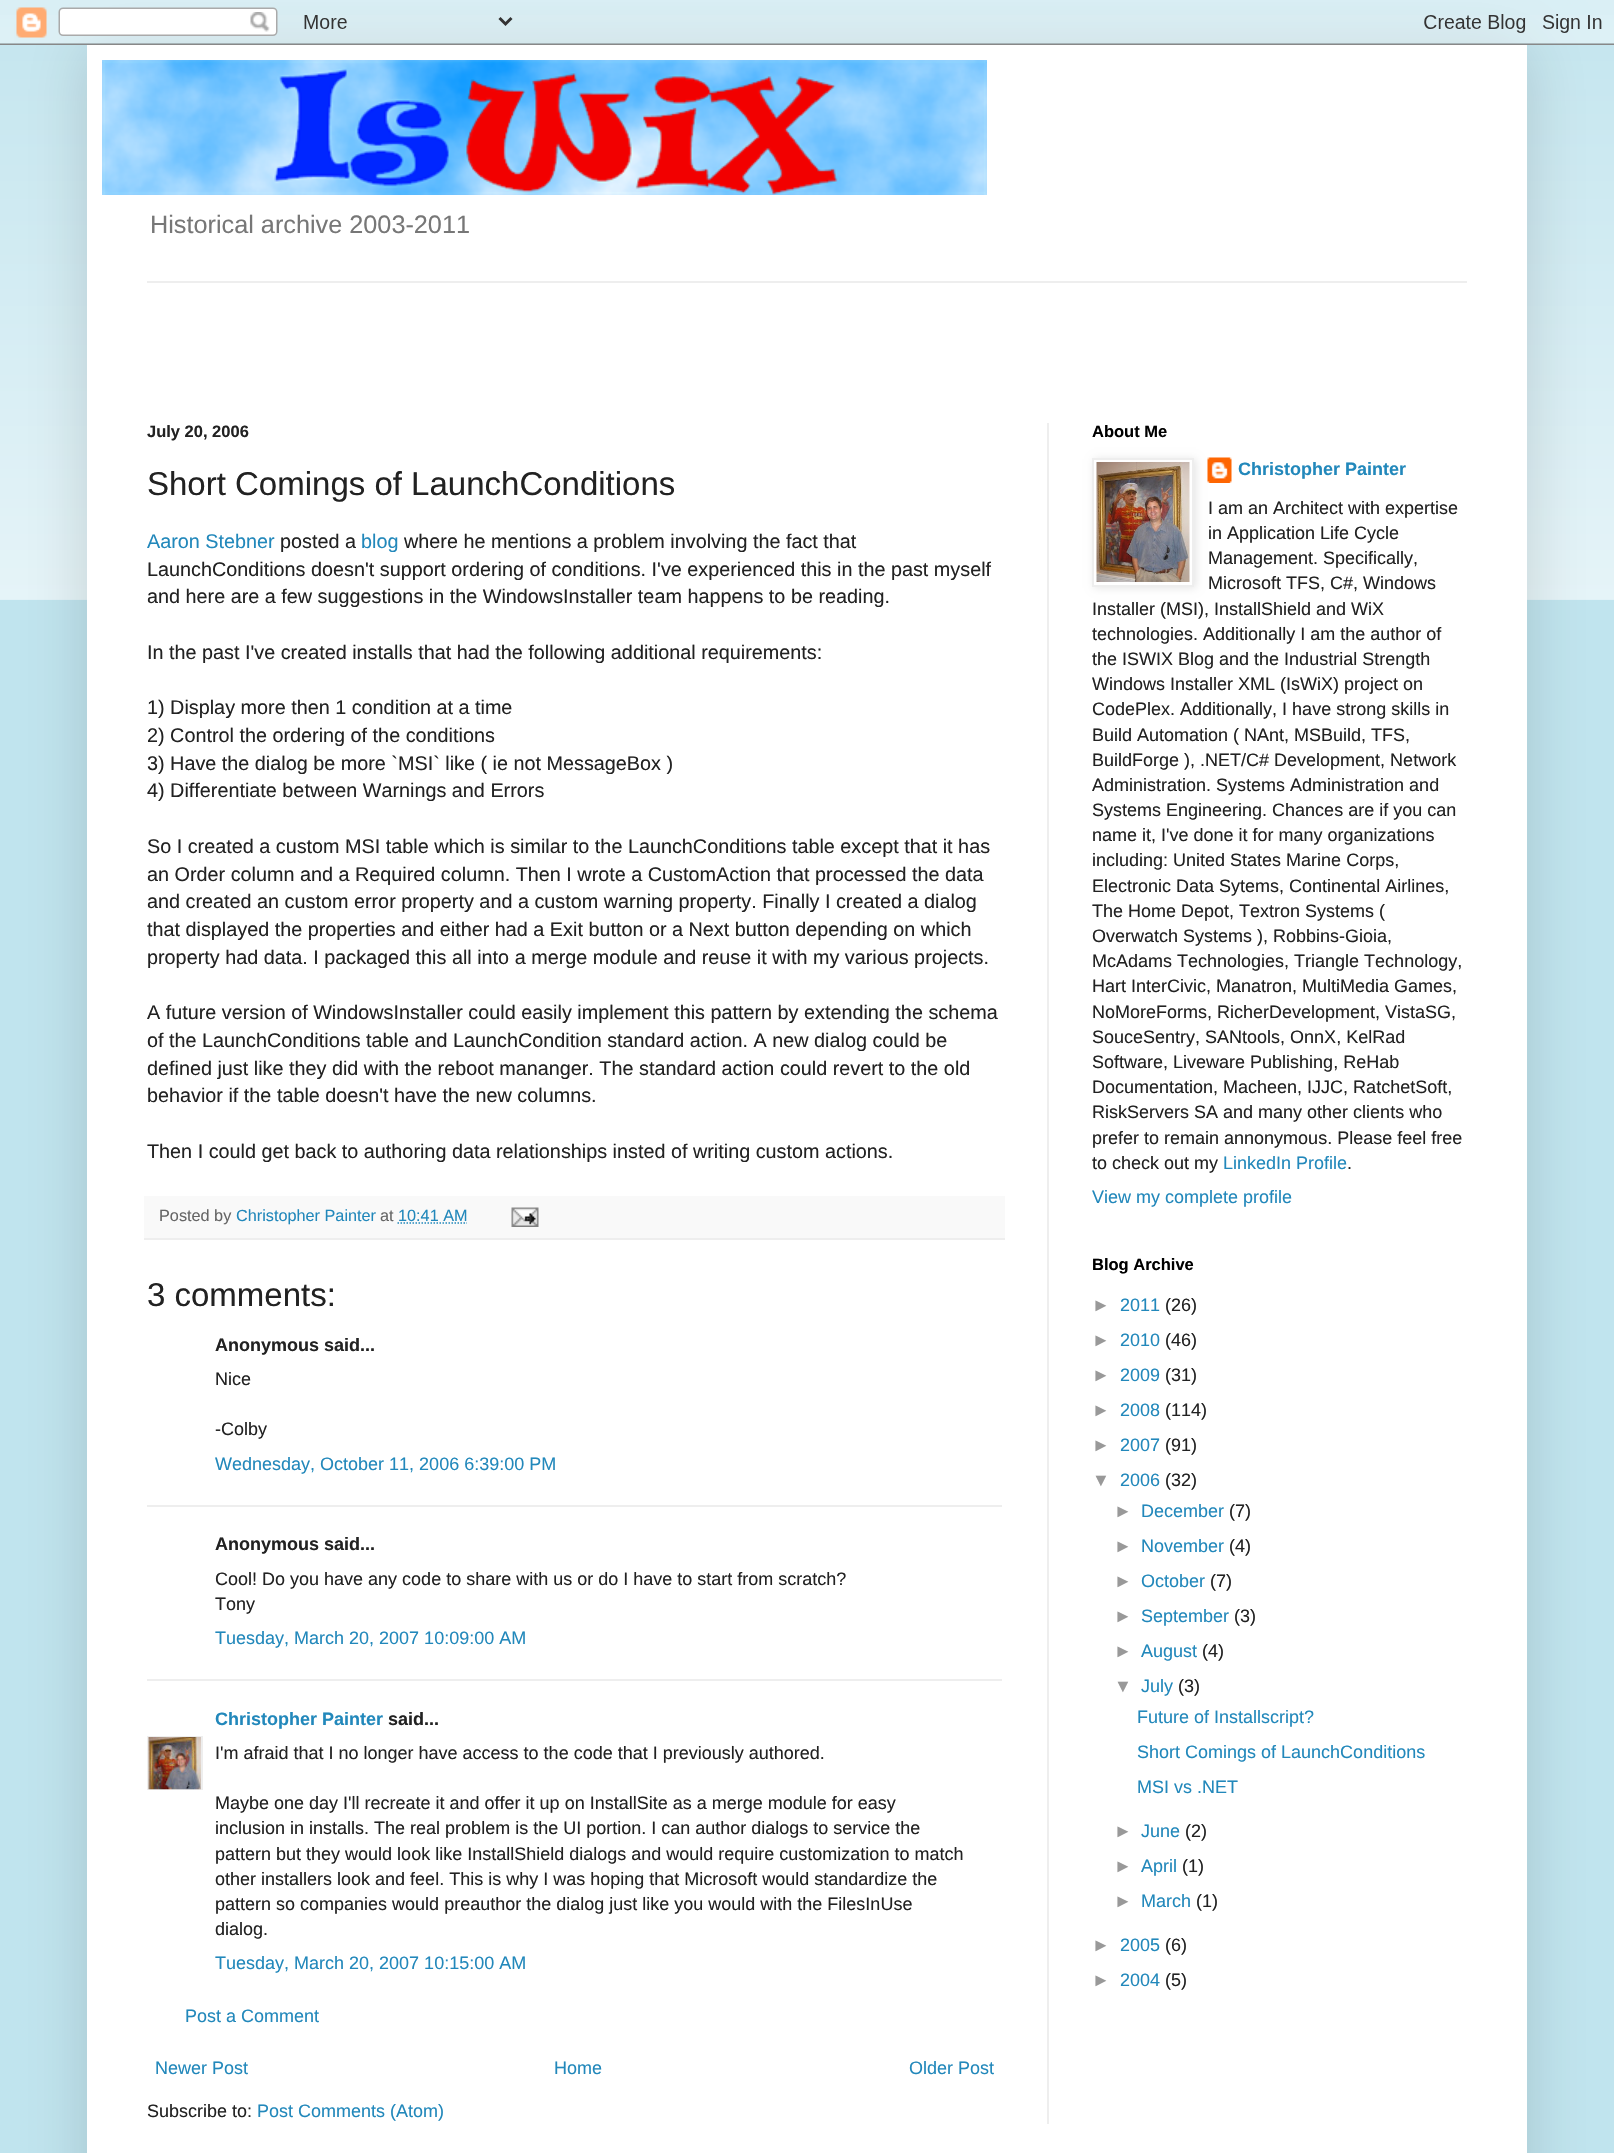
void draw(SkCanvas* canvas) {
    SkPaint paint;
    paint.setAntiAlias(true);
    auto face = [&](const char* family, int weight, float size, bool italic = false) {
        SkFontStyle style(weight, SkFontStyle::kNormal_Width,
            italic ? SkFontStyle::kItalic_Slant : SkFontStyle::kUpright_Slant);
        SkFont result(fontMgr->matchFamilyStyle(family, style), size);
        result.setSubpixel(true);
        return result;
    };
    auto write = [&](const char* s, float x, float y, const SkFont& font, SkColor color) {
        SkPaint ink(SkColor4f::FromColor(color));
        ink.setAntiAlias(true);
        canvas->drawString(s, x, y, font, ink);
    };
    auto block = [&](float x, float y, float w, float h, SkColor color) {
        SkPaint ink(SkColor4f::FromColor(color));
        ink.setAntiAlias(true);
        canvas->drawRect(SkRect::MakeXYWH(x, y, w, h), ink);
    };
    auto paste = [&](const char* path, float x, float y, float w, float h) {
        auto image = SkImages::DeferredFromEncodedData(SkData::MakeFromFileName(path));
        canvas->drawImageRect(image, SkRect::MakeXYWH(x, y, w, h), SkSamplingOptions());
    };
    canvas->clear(SkColorSetRGB(193, 229, 239));
    paste("pic2.png", 0, 15, 1614, 585);
    paint.setColor(SkColorSetARGB(38, 0, 0, 0));
    paint.setMaskFilter(SkMaskFilter::MakeBlur(kNormal_SkBlurStyle, 30));
    canvas->drawRect(SkRect::MakeXYWH(87, 45, 1440, 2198), paint);
    paint.setMaskFilter(nullptr);
    paste("pic1.png", 0, 0, 1614, 45);
    block(87, 45, 1440, 2108, SK_ColorWHITE);
    paste("pic3.png", 102, 60, 885, 135);
    auto kFont1 = face("Liberation Sans", 400, 25.25f);
    write("Historical archive 2003-2011", 150, 233, kFont1, SkColorSetRGB(119, 119, 119));
    block(147, 281, 1320, 2, SkColorSetRGB(238, 238, 238));
    block(1047, 423, 2, 1701, SkColorSetRGB(238, 238, 238));
    auto kFont2 = face("Liberation Sans", 700, 16.5f);
    write("July 20, 2006", 147, 437, kFont2, SkColorSetRGB(34, 34, 34));
    auto kFont3 = face("Liberation Sans", 400, 33);
    write("Short Comings of LaunchConditions", 147, 495, kFont3, SkColorSetRGB(34, 34, 34));
    auto kFont4 = face("Liberation Sans", 400, 19.8f);
    write("Aaron Stebner", 147, 548, kFont4, SkColorSetRGB(34, 136, 187));
    write("posted a", 280, 548, kFont4, SkColorSetRGB(34, 34, 34));
    write("blog", 361, 548, kFont4, SkColorSetRGB(34, 136, 187));
    write("where he mentions a problem involving the fact that", 404, 548, kFont4, SkColorSetRGB(34, 34, 34));
    write("LaunchConditions doesn't support ordering of conditions. I've experienced this in the past myself", 147, 576, kFont4, SkColorSetRGB(34, 34, 34));
    write("and here are a few suggestions in the WindowsInstaller team happens to be reading.", 147, 603, kFont4, SkColorSetRGB(34, 34, 34));
    write("In the past I've created installs that had the following additional requirements:", 147, 659, kFont4, SkColorSetRGB(34, 34, 34));
    write("1) Display more then 1 condition at a time", 147, 714, kFont4, SkColorSetRGB(34, 34, 34));
    write("2) Control the ordering of the conditions", 147, 742, kFont4, SkColorSetRGB(34, 34, 34));
    write("3) Have the dialog be more `MSI` like ( ie not MessageBox )", 147, 770, kFont4, SkColorSetRGB(34, 34, 34));
    write("4) Differentiate between Warnings and Errors", 147, 797, kFont4, SkColorSetRGB(34, 34, 34));
    write("So I created a custom MSI table which is similar to the LaunchConditions table except that it has", 147, 853, kFont4, SkColorSetRGB(34, 34, 34));
    write("an Order column and a Required column. Then I wrote a CustomAction that processed the data", 147, 881, kFont4, SkColorSetRGB(34, 34, 34));
    write("and created an custom error property and a custom warning property. Finally I created a dialog", 147, 908, kFont4, SkColorSetRGB(34, 34, 34));
    write("that displayed the properties and either had a Exit button or a Next button depending on which", 147, 936, kFont4, SkColorSetRGB(34, 34, 34));
    write("property had data. I packaged this all into a merge module and reuse it with my various projects.", 147, 964, kFont4, SkColorSetRGB(34, 34, 34));
    write("A future version of WindowsInstaller could easily implement this pattern by extending the schema", 147, 1019, kFont4, SkColorSetRGB(34, 34, 34));
    write("of the LaunchConditions table and LaunchCondition standard action. A new dialog could be", 147, 1047, kFont4, SkColorSetRGB(34, 34, 34));
    write("defined just like they did with the reboot mananger. The standard action could revert to the old", 147, 1075, kFont4, SkColorSetRGB(34, 34, 34));
    write("behavior if the table doesn't have the new columns.", 147, 1102, kFont4, SkColorSetRGB(34, 34, 34));
    write("Then I could get back to authoring data relationships insted of writing custom actions.", 147, 1158, kFont4, SkColorSetRGB(34, 34, 34));
    block(144, 1196, 861, 42, SkColorSetRGB(249, 249, 249));
    block(144, 1238, 861, 2, SkColorSetRGB(238, 238, 238));
    auto kFont5 = face("Liberation Sans", 400, 16.25f);
    write("Posted by", 159, 1221, kFont5, SkColorSetRGB(102, 102, 102));
    write("Christopher Painter", 236, 1221, kFont5, SkColorSetRGB(34, 136, 187));
    write("at", 380, 1221, kFont5, SkColorSetRGB(102, 102, 102));
    write("10:41 AM", 398, 1221, kFont5, SkColorSetRGB(34, 136, 187));
    paint.setStyle(SkPaint::kStroke_Style);
    paint.setStrokeWidth(1.5f);
    paint.setColor(SkColorSetRGB(34, 136, 187));
    paint.setPathEffect(SkDashPathEffect::Make({{1.5f, 1.5f}}, 0));
    canvas->drawPath(SkPathBuilder().moveTo(397.5f, 1223).lineTo(467, 1223).detach(), paint);
    paint.setPathEffect(nullptr);
    paste("pic4.png", 511, 1207, 28, 20);
    write("3 comments:", 147, 1306, kFont3, SkColorSetRGB(34, 34, 34));
    auto kFont6 = face("Liberation Sans", 700, 18);
    write("Anonymous said...", 215, 1351, kFont6, SkColorSetRGB(34, 34, 34));
    auto kFont7 = face("Liberation Sans", 400, 18);
    write("Nice", 215, 1385, kFont7, SkColorSetRGB(34, 34, 34));
    write("-Colby", 215, 1435, kFont7, SkColorSetRGB(34, 34, 34));
    write("Wednesday, October 11, 2006 6:39:00 PM", 215, 1470, kFont7, SkColorSetRGB(34, 136, 187));
    block(147, 1505, 855, 2, SkColorSetRGB(238, 238, 238));
    write("Anonymous said...", 215, 1550, kFont6, SkColorSetRGB(34, 34, 34));
    write("Cool! Do you have any code to share with us or do I have to start from scratch?", 215, 1585, kFont7, SkColorSetRGB(34, 34, 34));
    write("Tony", 215, 1610, kFont7, SkColorSetRGB(34, 34, 34));
    write("Tuesday, March 20, 2007 10:09:00 AM", 215, 1644, kFont7, SkColorSetRGB(34, 136, 187));
    block(147, 1679, 855, 2, SkColorSetRGB(238, 238, 238));
    write("Christopher Painter", 215, 1725, kFont6, SkColorSetRGB(34, 136, 187));
    write("said...", 388, 1725, kFont6, SkColorSetRGB(34, 34, 34));
    canvas->save();
    canvas->clipRect(SkRect::MakeXYWH(147, 1736, 56, 54));
    paint.setStrokeWidth(2);
    paint.setColor(SkColorSetRGB(238, 238, 238));
    canvas->drawRect(SkRect::MakeXYWH(148, 1737, 54, 53), paint);
    canvas->restore();
    paste("pic5.png", 148, 1737, 53, 53);
    write("I'm afraid that I no longer have access to the code that I previously authored.", 215, 1759, kFont7, SkColorSetRGB(34, 34, 34));
    write("Maybe one day I'll recreate it and offer it up on InstallSite as a merge module for easy", 215, 1809, kFont7, SkColorSetRGB(34, 34, 34));
    write("inclusion in installs. The real problem is the UI portion. I can author dialogs to service the", 215, 1834, kFont7, SkColorSetRGB(34, 34, 34));
    write("pattern but they would look like InstallShield dialogs and would require customization to match", 215, 1860, kFont7, SkColorSetRGB(34, 34, 34));
    write("other installers look and feel. This is why I was hoping that Microsoft would standardize the", 215, 1885, kFont7, SkColorSetRGB(34, 34, 34));
    write("pattern so companies would preauthor the dialog just like you would with the FilesInUse", 215, 1910, kFont7, SkColorSetRGB(34, 34, 34));
    write("dialog.", 215, 1935, kFont7, SkColorSetRGB(34, 34, 34));
    write("Tuesday, March 20, 2007 10:15:00 AM", 215, 1969, kFont7, SkColorSetRGB(34, 136, 187));
    write("Post a Comment", 185, 2022, kFont7, SkColorSetRGB(34, 136, 187));
    write("Newer Post", 155, 2074, kFont7, SkColorSetRGB(34, 136, 187));
    write("Home", 554, 2074, kFont7, SkColorSetRGB(34, 136, 187));
    write("Older Post", 909, 2074, kFont7, SkColorSetRGB(34, 136, 187));
    write("Subscribe to:", 147, 2117, kFont7, SkColorSetRGB(34, 34, 34));
    write("Post Comments (Atom)", 257, 2117, kFont7, SkColorSetRGB(34, 136, 187));
    write("About Me", 1092, 437, kFont2, SK_ColorBLACK);
    paste("pic7.png", 1207, 457, 25, 26);
    paint.setStyle(SkPaint::kFill_Style);
    paint.setColor(SkColorSetARGB(26, 0, 0, 0));
    paint.setMaskFilter(SkMaskFilter::MakeBlur(kNormal_SkBlurStyle, 4));
    canvas->drawRect(SkRect::MakeXYWH(1094, 459, 102, 129), paint);
    paint.setMaskFilter(nullptr);
    paint.setColor(SK_ColorWHITE);
    canvas->drawRect(SkRect::MakeXYWH(1093, 459, 100, 127), paint);
    paint.setStyle(SkPaint::kStroke_Style);
    paint.setColor(SkColorSetRGB(238, 238, 238));
    canvas->drawRect(SkRect::MakeXYWH(1093, 459, 100, 127), paint);
    paste("pic6.png", 1096, 462, 94, 120);
    write("Christopher Painter", 1238, 475, kFont6, SkColorSetRGB(34, 136, 187));
    write("I am an Architect with expertise", 1208, 514, kFont7, SkColorSetRGB(34, 34, 34));
    write("in Application Life Cycle", 1208, 539, kFont7, SkColorSetRGB(34, 34, 34));
    write("Management. Specifically,", 1208, 564, kFont7, SkColorSetRGB(34, 34, 34));
    write("Microsoft TFS, C#, Windows", 1208, 589, kFont7, SkColorSetRGB(34, 34, 34));
    write("Installer (MSI), InstallShield and WiX", 1092, 615, kFont7, SkColorSetRGB(34, 34, 34));
    write("technologies. Additionally I am the author of", 1092, 640, kFont7, SkColorSetRGB(34, 34, 34));
    write("the ISWIX Blog and the Industrial Strength", 1092, 665, kFont7, SkColorSetRGB(34, 34, 34));
    write("Windows Installer XML (IsWiX) project on", 1092, 690, kFont7, SkColorSetRGB(34, 34, 34));
    write("CodePlex. Additionally, I have strong skills in", 1092, 715, kFont7, SkColorSetRGB(34, 34, 34));
    write("Build Automation ( NAnt, MSBuild, TFS,", 1092, 741, kFont7, SkColorSetRGB(34, 34, 34));
    write("BuildForge ), .NET/C# Development, Network", 1092, 766, kFont7, SkColorSetRGB(34, 34, 34));
    write("Administration. Systems Administration and", 1092, 791, kFont7, SkColorSetRGB(34, 34, 34));
    write("Systems Engineering. Chances are if you can", 1092, 816, kFont7, SkColorSetRGB(34, 34, 34));
    write("name it, I've done it for many organizations", 1092, 841, kFont7, SkColorSetRGB(34, 34, 34));
    write("including: United States Marine Corps,", 1092, 866, kFont7, SkColorSetRGB(34, 34, 34));
    write("Electronic Data Sytems, Continental Airlines,", 1092, 892, kFont7, SkColorSetRGB(34, 34, 34));
    write("The Home Depot, Textron Systems (", 1092, 917, kFont7, SkColorSetRGB(34, 34, 34));
    write("Overwatch Systems ), Robbins-Gioia,", 1092, 942, kFont7, SkColorSetRGB(34, 34, 34));
    write("McAdams Technologies, Triangle Technology,", 1092, 967, kFont7, SkColorSetRGB(34, 34, 34));
    write("Hart InterCivic, Manatron, MultiMedia Games,", 1092, 992, kFont7, SkColorSetRGB(34, 34, 34));
    write("NoMoreForms, RicherDevelopment, VistaSG,", 1092, 1018, kFont7, SkColorSetRGB(34, 34, 34));
    write("SouceSentry, SANtools, OnnX, KelRad", 1092, 1043, kFont7, SkColorSetRGB(34, 34, 34));
    write("Software, Liveware Publishing, ReHab", 1092, 1068, kFont7, SkColorSetRGB(34, 34, 34));
    write("Documentation, Macheen, IJJC, RatchetSoft,", 1092, 1093, kFont7, SkColorSetRGB(34, 34, 34));
    write("RiskServers SA and many other clients who", 1092, 1118, kFont7, SkColorSetRGB(34, 34, 34));
    write("prefer to remain annonymous. Please feel free", 1092, 1144, kFont7, SkColorSetRGB(34, 34, 34));
    write("to check out my", 1092, 1169, kFont7, SkColorSetRGB(34, 34, 34));
    write("LinkedIn Profile", 1223, 1169, kFont7, SkColorSetRGB(34, 136, 187));
    write(".", 1347, 1169, kFont7, SkColorSetRGB(34, 34, 34));
    write("View my complete profile", 1092, 1203, kFont7, SkColorSetRGB(34, 136, 187));
    write("Blog Archive", 1092, 1270, kFont2, SK_ColorBLACK);
    write("►", 1092, 1311, kFont7, SkColorSetRGB(153, 153, 153));
    write("2011", 1120, 1311, kFont7, SkColorSetRGB(34, 136, 187));
    write("(26)", 1165, 1311, kFont7, SkColorSetRGB(34, 34, 34));
    write("►", 1092, 1346, kFont7, SkColorSetRGB(153, 153, 153));
    write("2010", 1120, 1346, kFont7, SkColorSetRGB(34, 136, 187));
    write("(46)", 1165, 1346, kFont7, SkColorSetRGB(34, 34, 34));
    write("►", 1092, 1381, kFont7, SkColorSetRGB(153, 153, 153));
    write("2009", 1120, 1381, kFont7, SkColorSetRGB(34, 136, 187));
    write("(31)", 1165, 1381, kFont7, SkColorSetRGB(34, 34, 34));
    write("►", 1092, 1416, kFont7, SkColorSetRGB(153, 153, 153));
    write("2008", 1120, 1416, kFont7, SkColorSetRGB(34, 136, 187));
    write("(114)", 1165, 1416, kFont7, SkColorSetRGB(34, 34, 34));
    write("►", 1092, 1451, kFont7, SkColorSetRGB(153, 153, 153));
    write("2007", 1120, 1451, kFont7, SkColorSetRGB(34, 136, 187));
    write("(91)", 1165, 1451, kFont7, SkColorSetRGB(34, 34, 34));
    write("▼", 1092, 1486, kFont7, SkColorSetRGB(153, 153, 153));
    write("2006", 1120, 1486, kFont7, SkColorSetRGB(34, 136, 187));
    write("(32)", 1165, 1486, kFont7, SkColorSetRGB(34, 34, 34));
    write("►", 1114, 1517, kFont7, SkColorSetRGB(153, 153, 153));
    write("December", 1141, 1517, kFont7, SkColorSetRGB(34, 136, 187));
    write("(7)", 1229, 1517, kFont7, SkColorSetRGB(34, 34, 34));
    write("►", 1114, 1552, kFont7, SkColorSetRGB(153, 153, 153));
    write("November", 1141, 1552, kFont7, SkColorSetRGB(34, 136, 187));
    write("(4)", 1229, 1552, kFont7, SkColorSetRGB(34, 34, 34));
    write("►", 1114, 1587, kFont7, SkColorSetRGB(153, 153, 153));
    write("October", 1141, 1587, kFont7, SkColorSetRGB(34, 136, 187));
    write("(7)", 1210, 1587, kFont7, SkColorSetRGB(34, 34, 34));
    write("►", 1114, 1622, kFont7, SkColorSetRGB(153, 153, 153));
    write("September", 1141, 1622, kFont7, SkColorSetRGB(34, 136, 187));
    write("(3)", 1234, 1622, kFont7, SkColorSetRGB(34, 34, 34));
    write("►", 1114, 1657, kFont7, SkColorSetRGB(153, 153, 153));
    write("August", 1141, 1657, kFont7, SkColorSetRGB(34, 136, 187));
    write("(4)", 1202, 1657, kFont7, SkColorSetRGB(34, 34, 34));
    write("▼", 1114, 1692, kFont7, SkColorSetRGB(153, 153, 153));
    write("July", 1141, 1692, kFont7, SkColorSetRGB(34, 136, 187));
    write("(3)", 1178, 1692, kFont7, SkColorSetRGB(34, 34, 34));
    write("Future of Installscript?", 1137, 1723, kFont7, SkColorSetRGB(34, 136, 187));
    write("Short Comings of LaunchConditions", 1137, 1758, kFont7, SkColorSetRGB(34, 136, 187));
    write("MSI vs .NET", 1137, 1793, kFont7, SkColorSetRGB(34, 136, 187));
    write("►", 1114, 1837, kFont7, SkColorSetRGB(153, 153, 153));
    write("June", 1141, 1837, kFont7, SkColorSetRGB(34, 136, 187));
    write("(2)", 1185, 1837, kFont7, SkColorSetRGB(34, 34, 34));
    write("►", 1114, 1872, kFont7, SkColorSetRGB(153, 153, 153));
    write("April", 1141, 1872, kFont7, SkColorSetRGB(34, 136, 187));
    write("(1)", 1182, 1872, kFont7, SkColorSetRGB(34, 34, 34));
    write("►", 1114, 1907, kFont7, SkColorSetRGB(153, 153, 153));
    write("March", 1141, 1907, kFont7, SkColorSetRGB(34, 136, 187));
    write("(1)", 1196, 1907, kFont7, SkColorSetRGB(34, 34, 34));
    write("►", 1092, 1951, kFont7, SkColorSetRGB(153, 153, 153));
    write("2005", 1120, 1951, kFont7, SkColorSetRGB(34, 136, 187));
    write("(6)", 1165, 1951, kFont7, SkColorSetRGB(34, 34, 34));
    write("►", 1092, 1986, kFont7, SkColorSetRGB(153, 153, 153));
    write("2004", 1120, 1986, kFont7, SkColorSetRGB(34, 136, 187));
    write("(5)", 1165, 1986, kFont7, SkColorSetRGB(34, 34, 34));
}
